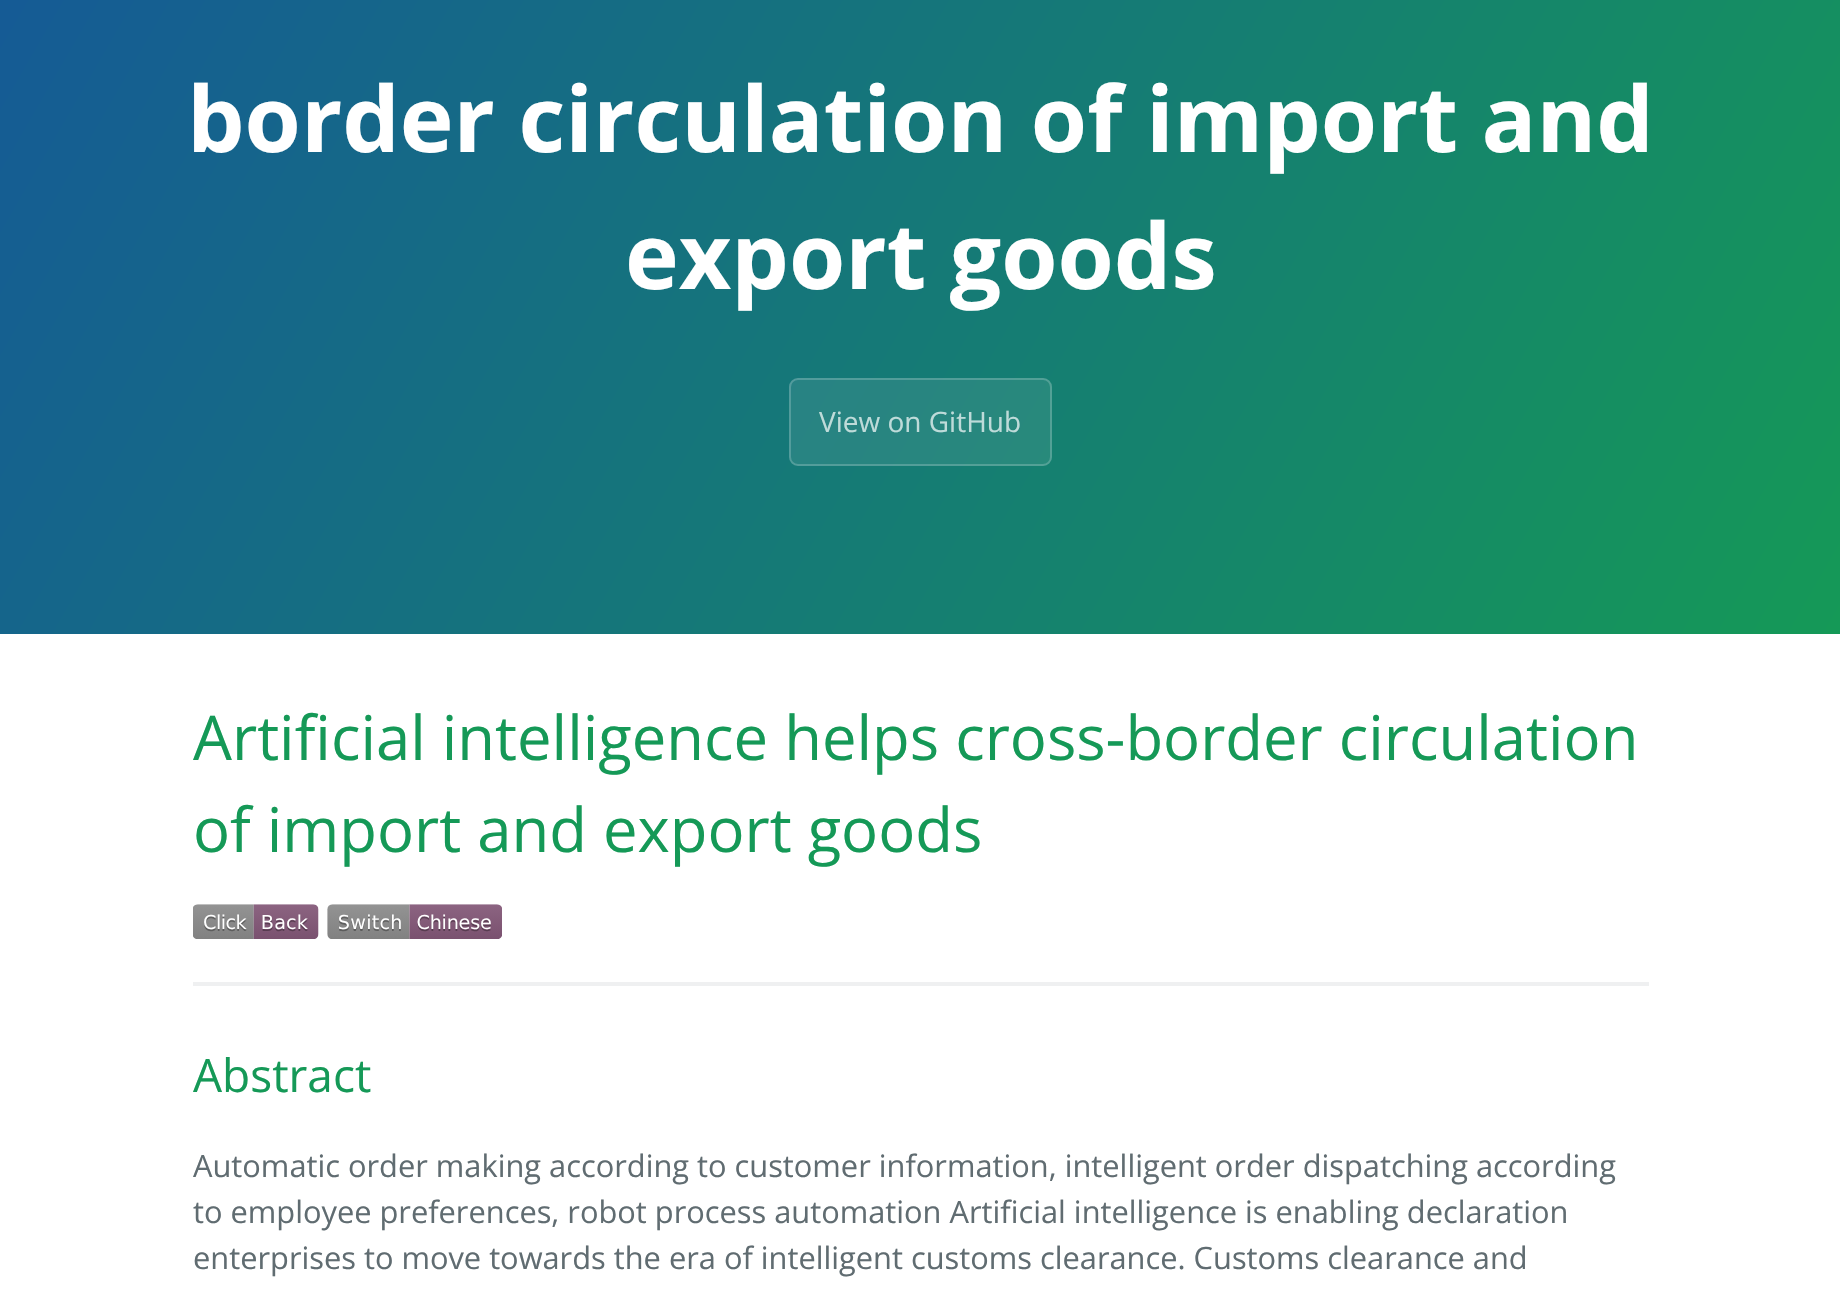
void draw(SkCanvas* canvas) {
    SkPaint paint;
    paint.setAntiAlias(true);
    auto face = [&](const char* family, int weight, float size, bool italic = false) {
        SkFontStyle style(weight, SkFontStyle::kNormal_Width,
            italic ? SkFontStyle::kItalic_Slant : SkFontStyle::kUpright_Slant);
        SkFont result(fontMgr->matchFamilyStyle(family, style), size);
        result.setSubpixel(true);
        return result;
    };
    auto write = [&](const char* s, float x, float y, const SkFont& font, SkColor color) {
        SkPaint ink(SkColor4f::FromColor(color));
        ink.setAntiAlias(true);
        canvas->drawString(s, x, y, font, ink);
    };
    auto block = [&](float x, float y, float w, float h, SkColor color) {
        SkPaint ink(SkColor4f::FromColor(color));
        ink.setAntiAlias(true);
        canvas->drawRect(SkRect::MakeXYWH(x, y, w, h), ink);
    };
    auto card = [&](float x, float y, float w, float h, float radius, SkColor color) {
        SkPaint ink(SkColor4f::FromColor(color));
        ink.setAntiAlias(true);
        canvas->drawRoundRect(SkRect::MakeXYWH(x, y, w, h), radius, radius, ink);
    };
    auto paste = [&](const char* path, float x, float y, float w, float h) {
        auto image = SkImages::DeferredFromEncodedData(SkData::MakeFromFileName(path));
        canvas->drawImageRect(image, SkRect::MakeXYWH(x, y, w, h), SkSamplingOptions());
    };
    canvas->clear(SK_ColorWHITE);
    {
        const SkColor colors[] = {SkColorSetRGB(21, 87, 153), SkColorSetRGB(21, 153, 87)};
        const float stops[] = {0, 1};
        const SkPoint ends[] = {{44, -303}, {1797, 709}};
        paint.setShader(SkGradientShader::MakeLinear(ends, colors, stops, 2, SkTileMode::kClamp));
        paint.setAlpha(255);
    }
    canvas->drawRect(SkRect::MakeXYWH(0, 0, 1840, 634), paint);
    auto kFont1 = face("Open Sans", 700, 91);
    write("border circulation of import and", 187, 152, kFont1, SK_ColorWHITE);
    write("export goods", 625, 289, kFont1, SK_ColorWHITE);
    card(789, 378, 263, 88, 9, SkColorSetARGB(20, 255, 255, 255));
    paint.setStyle(SkPaint::kStroke_Style);
    paint.setStrokeWidth(2);
    paint.setShader(nullptr);
    paint.setColor(SkColorSetARGB(51, 255, 255, 255));
    canvas->drawRoundRect(SkRect::MakeXYWH(790, 379, 261, 86), 8, 8, paint);
    auto kFont2 = face("Open Sans", 400, 28);
    write("View on GitHub", 819, 432, kFont2, SkColorSetRGB(190, 219, 217));
    auto kFont3 = face("Open Sans", 400, 61.6f);
    write("Artificial intelligence helps cross-border circulation", 193, 760, kFont3, SkColorSetRGB(21, 153, 87));
    write("of import and export goods", 193, 852, kFont3, SkColorSetRGB(21, 153, 87));
    paste("pic1.png", 193, 904, 126, 35);
    paste("pic2.png", 327, 904, 175, 35);
    block(193, 982, 1456, 4, SkColorSetRGB(239, 240, 241));
    auto kFont4 = face("Open Sans", 400, 46);
    write("Abstract", 193, 1092, kFont4, SkColorSetRGB(21, 153, 87));
    auto kFont5 = face("Open Sans", 400, 30.8f);
    write("Automatic order making according to customer information, intelligent order dispatching according", 193, 1177, kFont5, SkColorSetRGB(96, 108, 113));
    write("to employee preferences, robot process automation Artificial intelligence is enabling declaration", 193, 1223, kFont5, SkColorSetRGB(96, 108, 113));
    write("enterprises to move towards the era of intelligent customs clearance. Customs clearance and", 193, 1269, kFont5, SkColorSetRGB(96, 108, 113));
}
